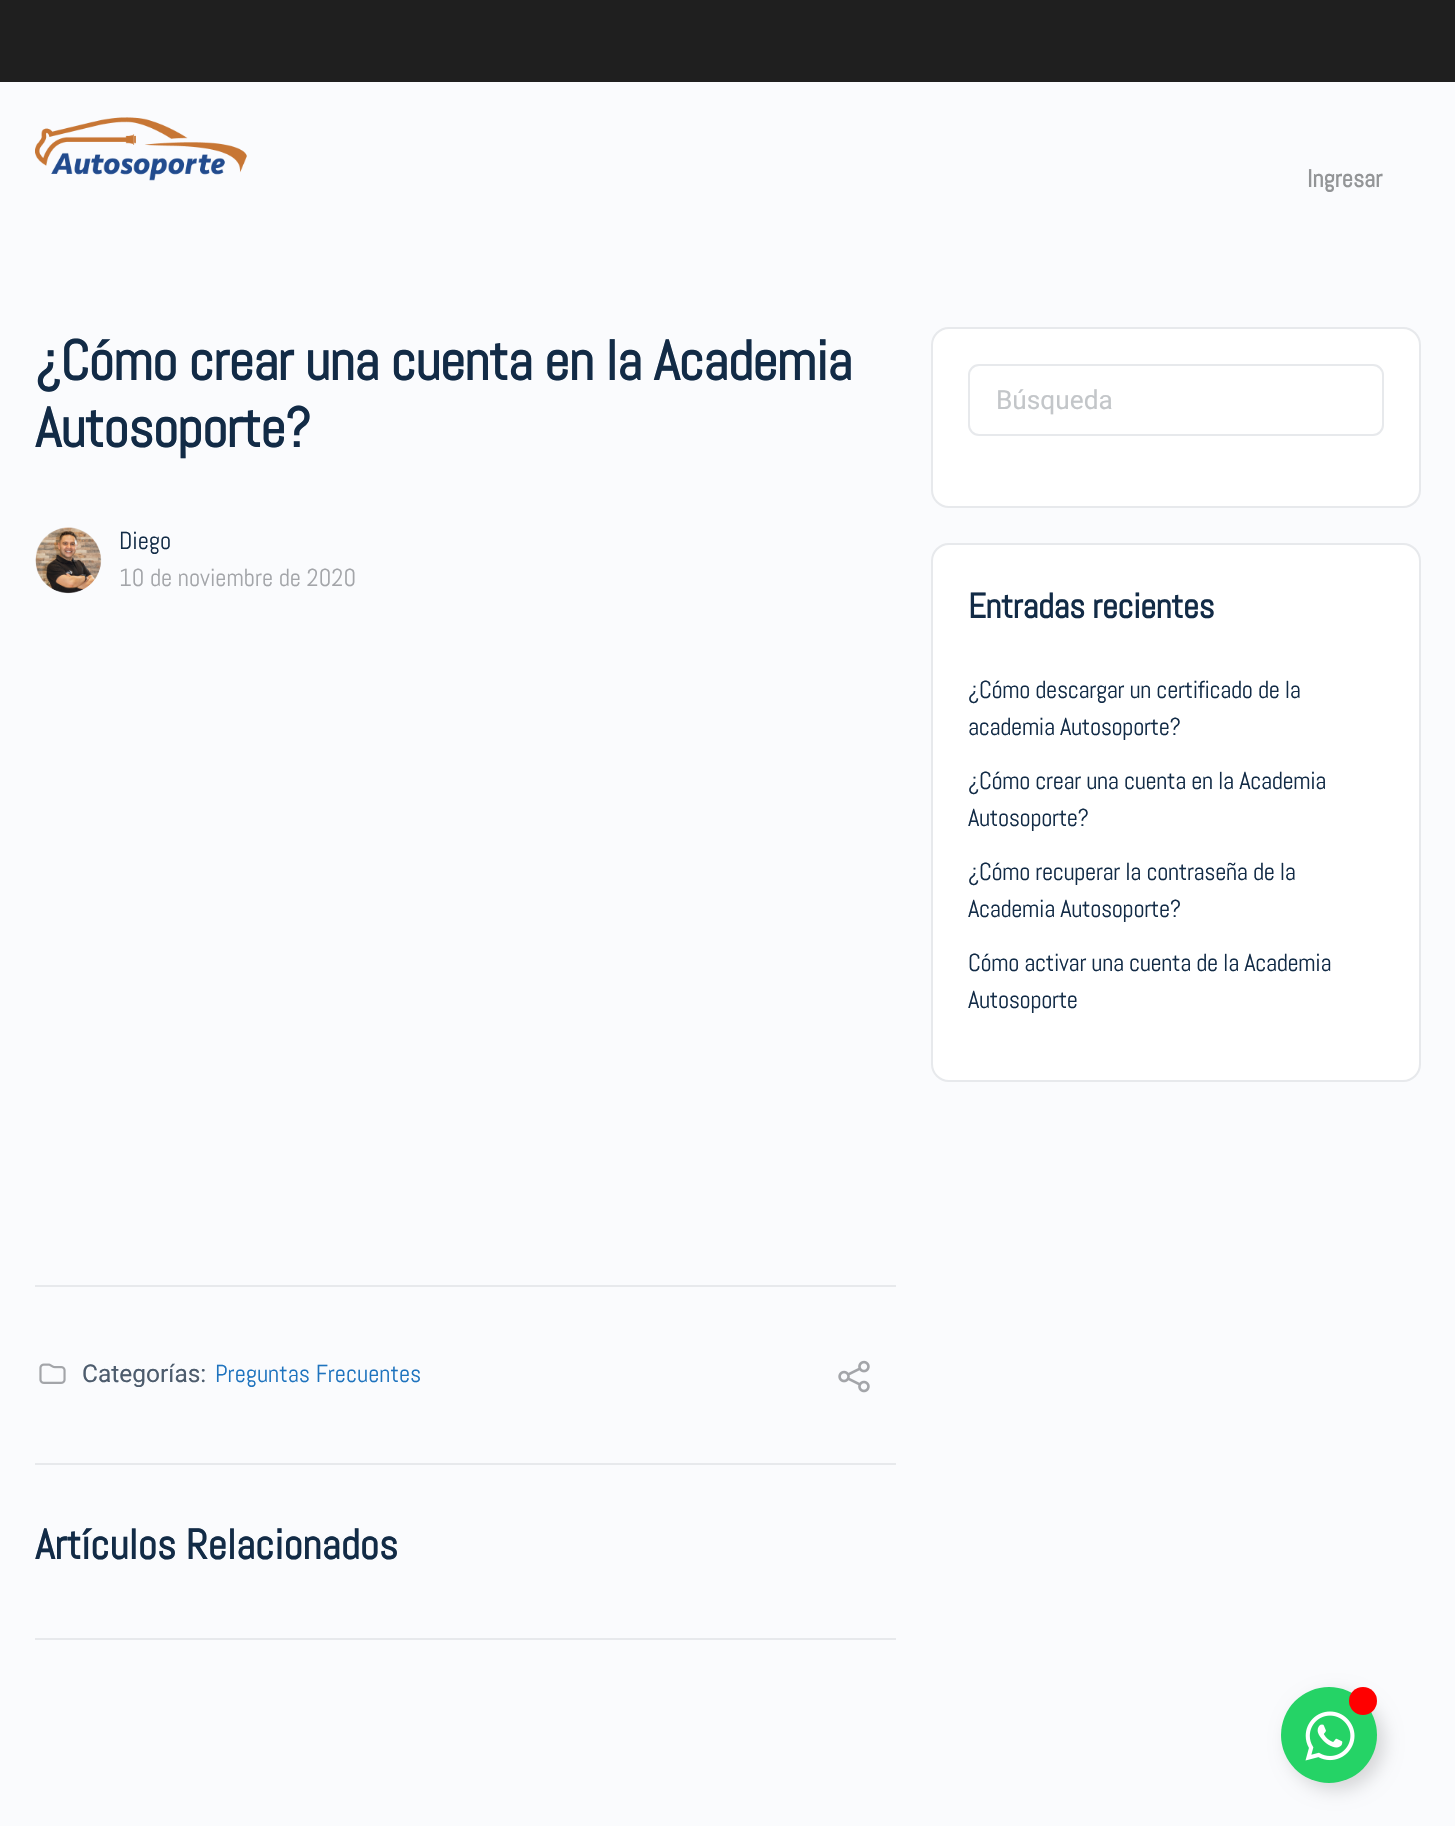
void draw(SkCanvas* canvas) {
    SkPaint paint;
    paint.setAntiAlias(true);
    auto face = [&](const char* family, int weight, float size, bool italic = false) {
        SkFontStyle style(weight, SkFontStyle::kNormal_Width,
            italic ? SkFontStyle::kItalic_Slant : SkFontStyle::kUpright_Slant);
        SkFont result(fontMgr->matchFamilyStyle(family, style), size);
        result.setSubpixel(true);
        return result;
    };
    auto write = [&](const char* s, float x, float y, const SkFont& font, SkColor color) {
        SkPaint ink(SkColor4f::FromColor(color));
        ink.setAntiAlias(true);
        canvas->drawString(s, x, y, font, ink);
    };
    auto writeSpaced = [&](const char* s, float x, float y, const SkFont& font, const SkPaint& ink, float letter, float word) {
        std::vector<SkGlyphID> glyphs(font.countText(s, strlen(s), SkTextEncoding::kUTF8));
        std::vector<float> xs(glyphs.size());
        font.textToGlyphs(s, strlen(s), SkTextEncoding::kUTF8, glyphs);
        font.getXPos(glyphs, xs, x);
        float extra = 0;
        for (size_t i = 0; i < glyphs.size(); i++) {
            xs[i] += extra;
            extra += letter + word * (glyphs[i] == font.unicharToGlyph(' '));
        }
        canvas->drawTextBlob(SkTextBlob::MakeFromPosHGlyphs(glyphs, xs, y, font), 0, 0, ink);
    };
    auto block = [&](float x, float y, float w, float h, SkColor color) {
        SkPaint ink(SkColor4f::FromColor(color));
        ink.setAntiAlias(true);
        canvas->drawRect(SkRect::MakeXYWH(x, y, w, h), ink);
    };
    auto paste = [&](const char* path, float x, float y, float w, float h) {
        auto image = SkImages::DeferredFromEncodedData(SkData::MakeFromFileName(path));
        canvas->drawImageRect(image, SkRect::MakeXYWH(x, y, w, h), SkSamplingOptions());
    };
    canvas->clear(SkColorSetRGB(250, 251, 253));
    block(0, 0, 1455, 82, SkColorSetRGB(31, 31, 31));
    paste("pic1.png", 35, 117, 212, 64);
    auto kFont1 = face("Abel", 700, 24.5f);
    write("Ingresar", 1307, 187, kFont1, SkColorSetRGB(147, 149, 151));
    auto kFont2 = face("Abel", 700, 56);
    paint.setColor(SkColorSetRGB(18, 43, 70));
    writeSpaced("¿Cómo crear una cuenta en la Academia", 35, 380, kFont2, paint, -0.85f, 0);
    writeSpaced("Autosoporte?", 35, 447, kFont2, paint, -0.85f, 0);
    paste("pic2.png", 35, 527, 67, 67);
    auto kFont3 = face("Abel", 400, 24.5f);
    write("Diego", 119, 549, kFont3, SkColorSetRGB(18, 43, 70));
    write("10 de noviembre de 2020", 119, 586, kFont3, SkColorSetRGB(163, 165, 169));
    block(35, 1285, 861, 2, SkColorSetRGB(231, 233, 236));
    paste("pic3.png", 39, 1363, 27, 21);
    auto kFont4 = face("Roboto", 400, 24.5f);
    write("Categorías:", 82, 1382, kFont4, SkColorSetRGB(77, 92, 109));
    write("Preguntas Frecuentes", 215, 1382, kFont3, SkColorSetRGB(30, 115, 190));
    paste("pic4.png", 838, 1360, 32, 33);
    block(35, 1463, 861, 2, SkColorSetRGB(231, 233, 236));
    block(35, 1638, 861, 2, SkColorSetRGB(231, 233, 236));
    auto kFont5 = face("Abel", 700, 42);
    write("Artículos Relacionados", 35, 1559, kFont5, SkColorSetRGB(18, 43, 70));
    paint.setColor(SK_ColorWHITE);
    canvas->drawRoundRect(SkRect::MakeXYWH(932, 328, 488, 179), 17, 17, paint);
    paint.setStyle(SkPaint::kStroke_Style);
    paint.setStrokeWidth(2);
    paint.setColor(SkColorSetRGB(231, 233, 236));
    canvas->drawRoundRect(SkRect::MakeXYWH(932, 328, 488, 179), 17, 17, paint);
    canvas->drawRoundRect(SkRect::MakeXYWH(969, 365, 414, 70), 10, 10, paint);
    auto kFont6 = face("Roboto", 400, 26.25f);
    write("Búsqueda", 996, 409, kFont6, SkColorSetRGB(195, 198, 201));
    paint.setStyle(SkPaint::kFill_Style);
    paint.setColor(SK_ColorWHITE);
    canvas->drawRoundRect(SkRect::MakeXYWH(932, 544, 488, 537), 17, 17, paint);
    paint.setStyle(SkPaint::kStroke_Style);
    paint.setColor(SkColorSetRGB(231, 233, 236));
    canvas->drawRoundRect(SkRect::MakeXYWH(932, 544, 488, 537), 17, 17, paint);
    auto kFont7 = face("Abel", 700, 35);
    paint.setStyle(SkPaint::kFill_Style);
    paint.setColor(SkColorSetRGB(18, 43, 70));
    writeSpaced("Entradas recientes", 968, 618, kFont7, paint, -0.4f, 0);
    writeSpaced("¿Cómo descargar un certificado de la", 968, 698, kFont3, paint, -0.35f, 0);
    writeSpaced("academia Autosoporte?", 968, 735, kFont3, paint, -0.35f, 0);
    writeSpaced("¿Cómo crear una cuenta en la Academia", 968, 789, kFont3, paint, -0.35f, 0);
    writeSpaced("Autosoporte?", 968, 826, kFont3, paint, -0.35f, 0);
    writeSpaced("¿Cómo recuperar la contraseña de la", 968, 880, kFont3, paint, -0.35f, 0);
    writeSpaced("Academia Autosoporte?", 968, 917, kFont3, paint, -0.35f, 0);
    writeSpaced("Cómo activar una cuenta de la Academia", 968, 971, kFont3, paint, -0.35f, 0);
    writeSpaced("Autosoporte", 968, 1008, kFont3, paint, -0.35f, 0);
    paint.setColor(SkColorSetARGB(38, 0, 0, 0));
    paint.setMaskFilter(SkMaskFilter::MakeBlur(kNormal_SkBlurStyle, 9));
    canvas->drawRoundRect(SkRect::MakeXYWH(1288, 1694, 96, 96), 48, 48, paint);
    paint.setMaskFilter(nullptr);
    paint.setColor(SkColorSetRGB(37, 211, 102));
    canvas->drawCircle(1329, 1735, 48, paint);
    paste("pic5.png", 1305, 1711, 50, 50);
    paint.setColor(SkColorSetRGB(255, 0, 0));
    canvas->drawCircle(1363, 1701, 14, paint);
}
